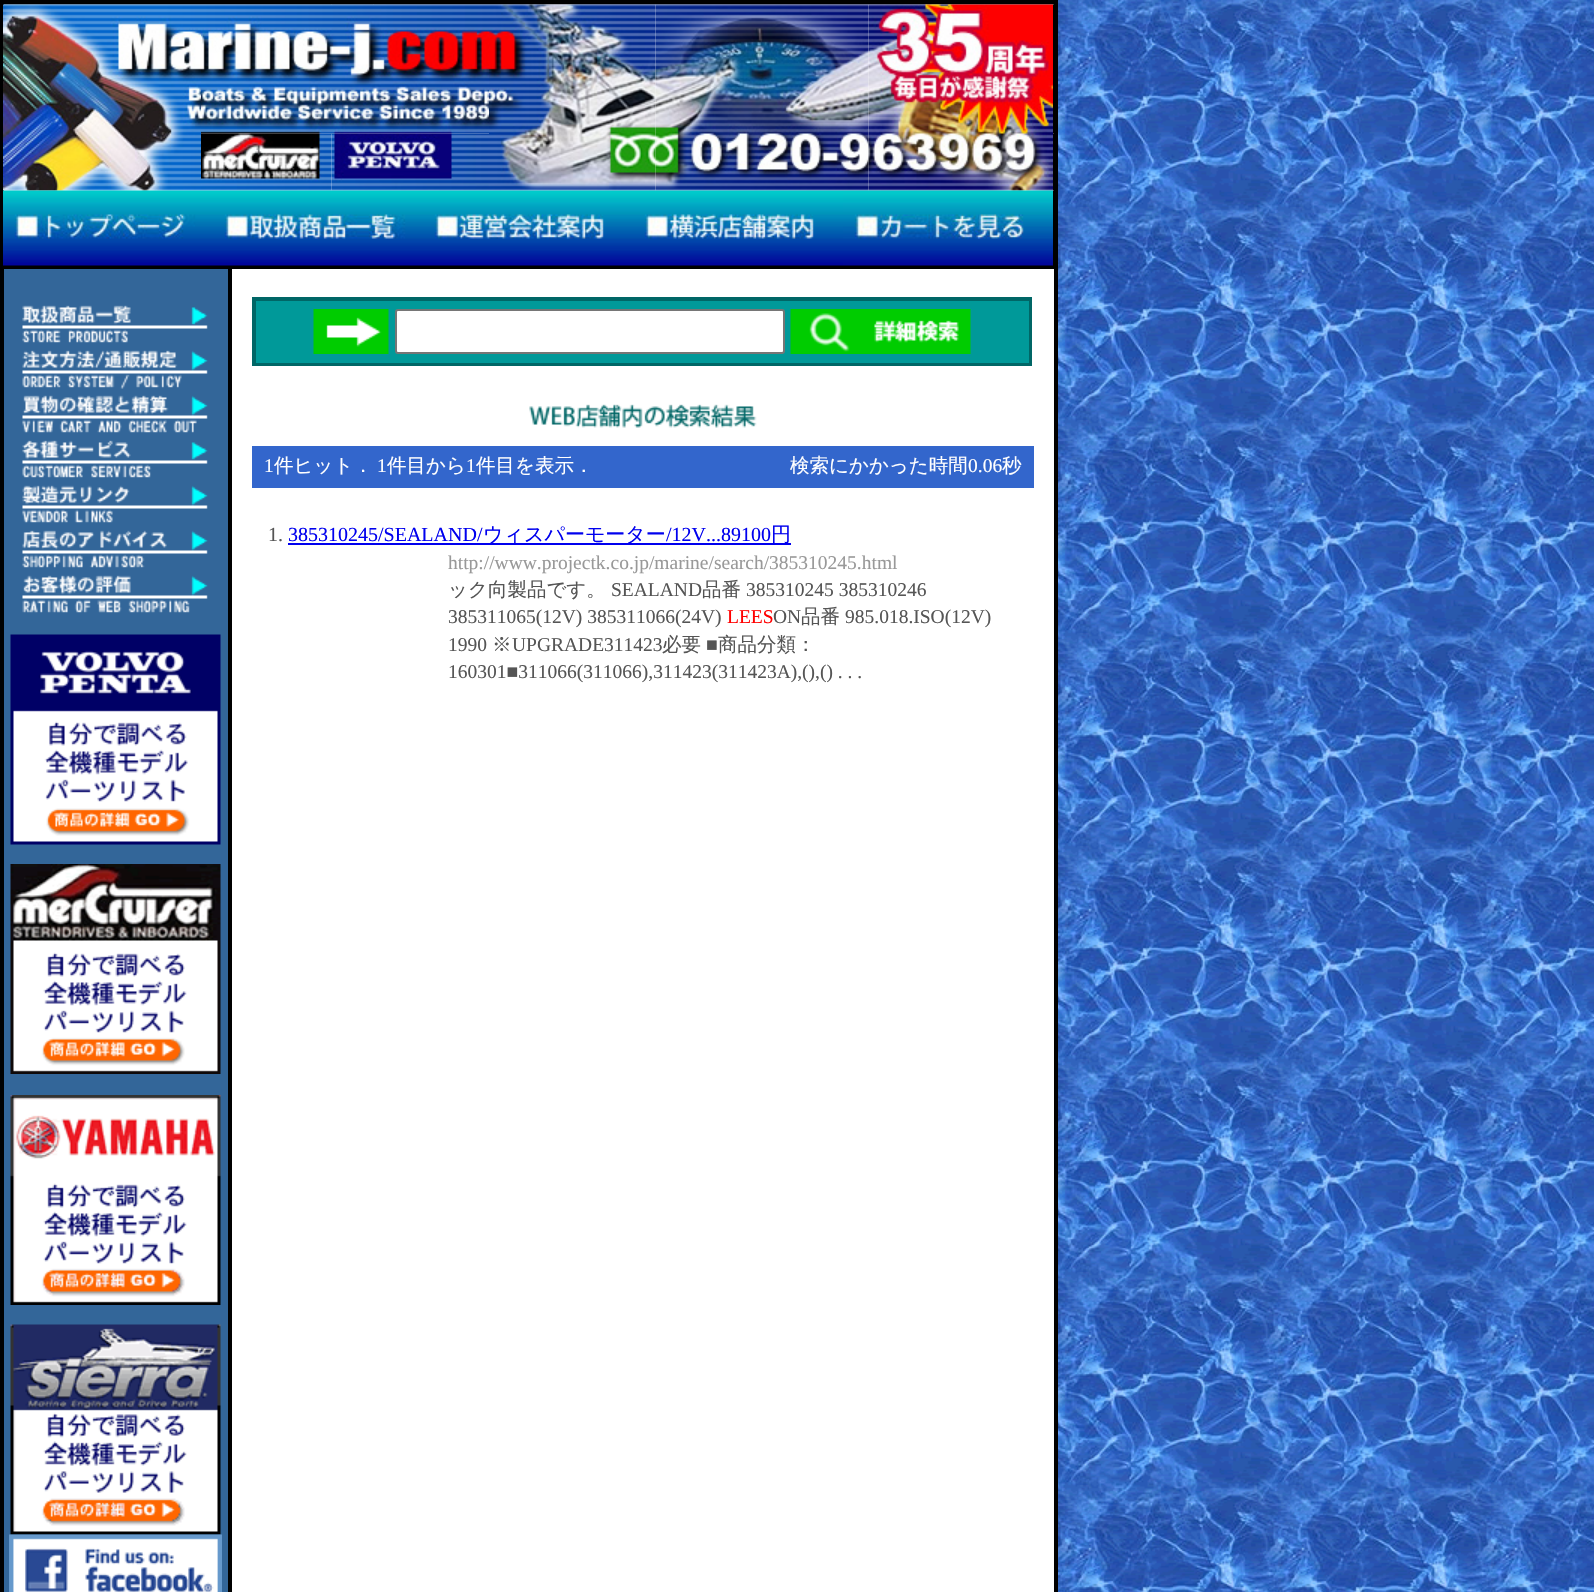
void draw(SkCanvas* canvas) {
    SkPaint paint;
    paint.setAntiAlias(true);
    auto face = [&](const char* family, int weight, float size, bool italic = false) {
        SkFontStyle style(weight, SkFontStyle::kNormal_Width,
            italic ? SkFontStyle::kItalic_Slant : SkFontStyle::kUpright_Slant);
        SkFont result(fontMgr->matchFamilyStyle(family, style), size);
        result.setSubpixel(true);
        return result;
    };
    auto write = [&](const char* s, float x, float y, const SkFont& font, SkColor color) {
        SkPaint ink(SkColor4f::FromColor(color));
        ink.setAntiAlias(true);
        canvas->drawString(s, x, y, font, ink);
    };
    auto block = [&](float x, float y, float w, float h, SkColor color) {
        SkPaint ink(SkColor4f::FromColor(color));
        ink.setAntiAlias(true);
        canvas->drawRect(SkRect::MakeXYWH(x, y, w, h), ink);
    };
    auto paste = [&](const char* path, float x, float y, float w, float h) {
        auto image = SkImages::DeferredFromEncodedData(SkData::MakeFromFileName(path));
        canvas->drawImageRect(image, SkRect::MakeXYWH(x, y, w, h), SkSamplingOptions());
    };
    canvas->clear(SK_ColorWHITE);
    paste("pic1.png", 1058, 0, 536, 1592);
    paint.setStyle(SkPaint::kStroke_Style);
    paint.setStrokeWidth(2);
    paint.setColor(SK_ColorBLACK);
    canvas->drawRect(SkRect::MakeXYWH(1, 1, 1056, 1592), paint);
    canvas->drawRect(SkRect::MakeXYWH(3, 3, 1052, 263), paint);
    block(4, 4, 197, 1, SkColorSetRGB(128, 128, 128));
    paste("pic2.png", 3, 4, 198, 187);
    paste("pic8.png", 201, 4, 131, 1);
    paste("pic9.png", 331, 4, 43, 1);
    paste("pic10.png", 373, 4, 116, 1);
    paste("pic3.png", 201, 4, 288, 130);
    paste("pic11.png", 489, 4, 167, 1);
    paste("pic12.png", 655, 4, 214, 1);
    paste("pic4.png", 489, 4, 167, 187);
    paste("pic13.png", 868, 4, 185, 1);
    paste("pic5.png", 655, 4, 214, 187);
    paste("pic6.png", 868, 4, 185, 187);
    block(1053, 4, 1, 1, SkColorSetRGB(128, 128, 128));
    paste("pic7.png", 1053, 4, 1, 130);
    paste("pic14.png", 201, 133, 131, 58);
    paste("pic15.png", 331, 133, 158, 58);
    paste("pic16.png", 1053, 133, 1, 58);
    paste("pic17.png", 3, 190, 210, 76);
    paste("pic18.png", 213, 190, 210, 76);
    paste("pic19.png", 423, 190, 210, 76);
    paste("pic20.png", 633, 190, 210, 76);
    paste("pic21.png", 843, 190, 210, 76);
    paste("pic22.png", 1053, 190, 1, 75);
    paint.setStyle(SkPaint::kFill_Style);
    paint.setColor(SkColorSetRGB(51, 102, 153));
    canvas->drawRect(SkRect::MakeXYWH(3, 268, 226, 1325), paint);
    paint.setStyle(SkPaint::kStroke_Style);
    paint.setColor(SK_ColorBLACK);
    canvas->drawRect(SkRect::MakeXYWH(3, 268, 226, 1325), paint);
    paste("pic23.png", 22, 305, 186, 38);
    paste("pic24.png", 22, 350, 186, 39);
    paste("pic25.png", 22, 395, 186, 38);
    paste("pic26.png", 22, 440, 186, 38);
    paste("pic27.png", 22, 485, 186, 38);
    paste("pic28.png", 22, 530, 186, 38);
    paste("pic29.png", 22, 575, 186, 38);
    paste("pic30.png", 10, 634, 211, 211);
    paste("pic31.png", 10, 864, 211, 210);
    paste("pic32.png", 10, 1095, 211, 210);
    paste("pic33.png", 10, 1324, 211, 211);
    paste("pic34.png", 9, 1534, 213, 58);
    canvas->drawRect(SkRect::MakeXYWH(231, 268, 824, 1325), paint);
    block(252, 297, 780, 69, SkColorSetRGB(0, 102, 102));
    block(256, 301, 773, 62, SkColorSetRGB(0, 153, 153));
    paste("pic35.png", 313, 309, 76, 45);
    paint.setStyle(SkPaint::kFill_Style);
    paint.setColor(SK_ColorWHITE);
    canvas->drawRoundRect(SkRect::MakeXYWH(396, 310, 388, 43), 2, 2, paint);
    paint.setStyle(SkPaint::kStroke_Style);
    paint.setColor(SkColorSetRGB(118, 118, 118));
    canvas->drawRoundRect(SkRect::MakeXYWH(396, 310, 388, 43), 2, 2, paint);
    paste("pic36.png", 790, 309, 181, 45);
    paste("pic37.png", 529, 404, 228, 24);
    block(252, 446, 782, 42, SkColorSetRGB(51, 102, 204));
    auto kFont1 = face("Liberation Serif", 400, 19.5f);
    write("1", 264, 472, kFont1, SK_ColorWHITE);
    auto kFont2 = face("WenQuanYi Zen Hei", 500, 19.5f);
    write("件ヒット．", 274, 472, kFont2, SK_ColorWHITE);
    write("1", 377, 472, kFont1, SK_ColorWHITE);
    write("件目から", 387, 472, kFont2, SK_ColorWHITE);
    write("1", 466, 472, kFont1, SK_ColorWHITE);
    write("件目を表示．", 476, 472, kFont2, SK_ColorWHITE);
    write("検索にかかった時間", 790, 472, kFont2, SK_ColorWHITE);
    write("0.06", 968, 472, kFont1, SK_ColorWHITE);
    write("秒", 1002, 472, kFont2, SK_ColorWHITE);
    auto kFont3 = face("Liberation Serif", 400, 20);
    write("1.", 268, 541, kFont3, SkColorSetRGB(85, 85, 85));
    write("385310245/SEALAND/", 288, 541, kFont3, SkColorSetRGB(0, 0, 238));
    block(288, 543, 503, 2, SkColorSetRGB(0, 0, 238));
    auto kFont4 = face("WenQuanYi Zen Hei", 500, 20);
    write("ウィスパーモーター", 483, 541, kFont4, SkColorSetRGB(0, 0, 238));
    write("/12V...89100", 666, 541, kFont3, SkColorSetRGB(0, 0, 238));
    write("円", 771, 541, kFont4, SkColorSetRGB(0, 0, 238));
    write("http://www.projectk.co.jp/marine/search/385310245.html", 448, 569, kFont1, SkColorSetRGB(153, 153, 153));
    write("ック向製品です。", 448, 596, kFont2, SkColorSetRGB(85, 85, 85));
    write("SEALAND", 611, 596, kFont1, SkColorSetRGB(85, 85, 85));
    write("品番", 702, 596, kFont2, SkColorSetRGB(85, 85, 85));
    write("385310245 385310246", 746, 596, kFont1, SkColorSetRGB(85, 85, 85));
    write("385311065(12V) 385311066(24V)", 448, 623, kFont1, SkColorSetRGB(85, 85, 85));
    write("LEES", 727, 623, kFont1, SkColorSetRGB(255, 0, 0));
    write("ON", 773, 623, kFont1, SkColorSetRGB(85, 85, 85));
    write("品番", 801, 623, kFont2, SkColorSetRGB(85, 85, 85));
    write("985.018.ISO(12V)", 845, 623, kFont1, SkColorSetRGB(85, 85, 85));
    write("1990", 448, 651, kFont1, SkColorSetRGB(85, 85, 85));
    write("※", 492, 651, kFont2, SkColorSetRGB(85, 85, 85));
    write("UPGRADE311423", 512, 651, kFont1, SkColorSetRGB(85, 85, 85));
    write("必要", 662, 651, kFont2, SkColorSetRGB(85, 85, 85));
    write("■", 706, 651, kFont1, SkColorSetRGB(85, 85, 85));
    write("商品分類：", 718, 651, kFont2, SkColorSetRGB(85, 85, 85));
    write("160301■311066(311066),311423(311423A),(),() . . .", 448, 678, kFont1, SkColorSetRGB(85, 85, 85));
}
